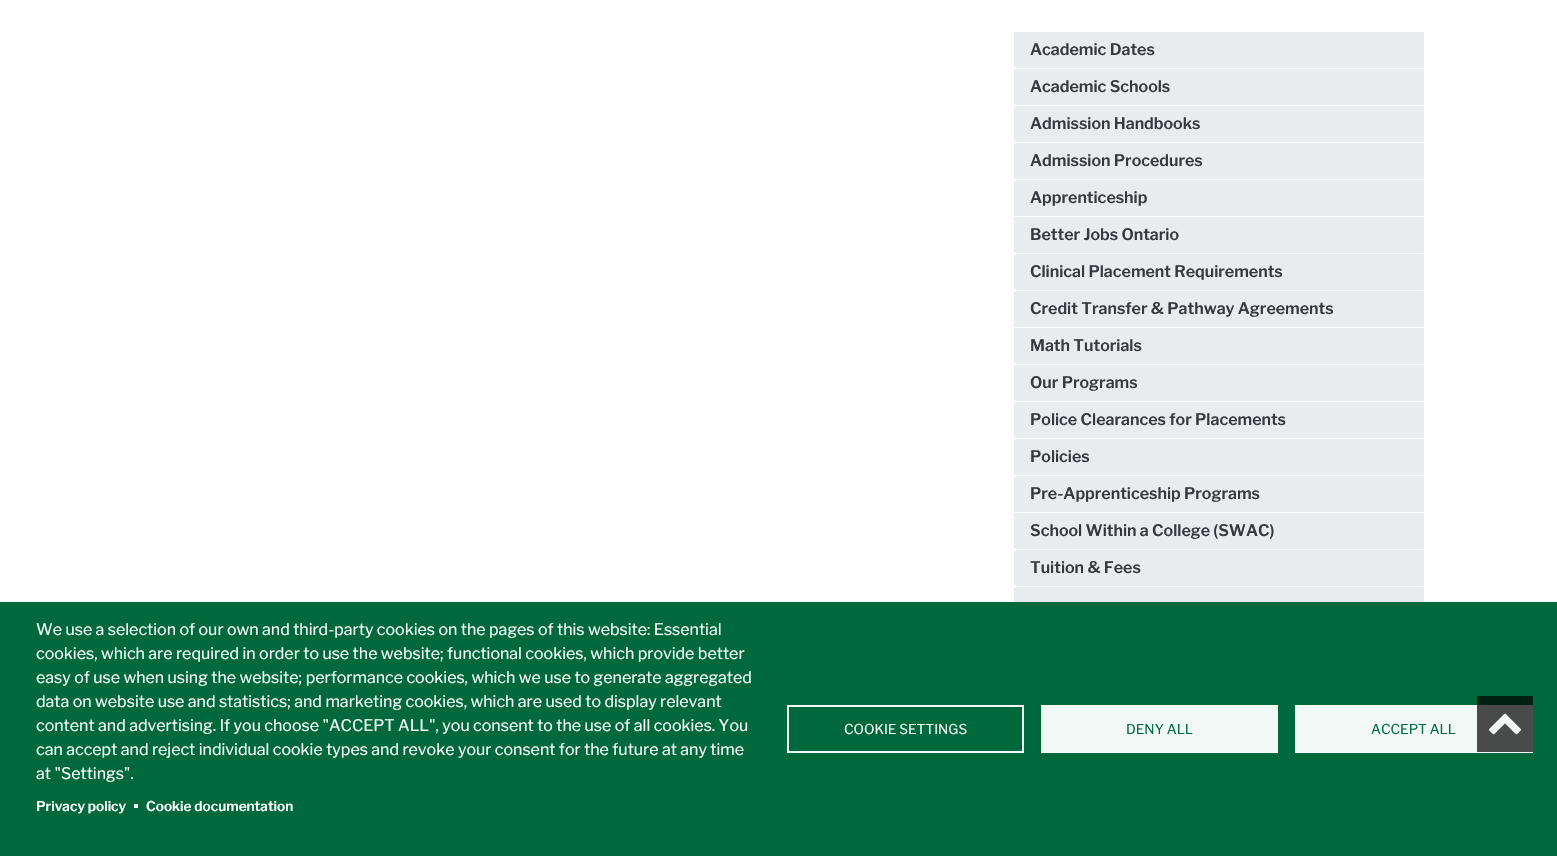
void draw(SkCanvas* canvas) {
    SkPaint paint;
    paint.setAntiAlias(true);
    auto face = [&](const char* family, int weight, float size, bool italic = false) {
        SkFontStyle style(weight, SkFontStyle::kNormal_Width,
            italic ? SkFontStyle::kItalic_Slant : SkFontStyle::kUpright_Slant);
        SkFont result(fontMgr->matchFamilyStyle(family, style), size);
        result.setSubpixel(true);
        return result;
    };
    auto write = [&](const char* s, float x, float y, const SkFont& font, SkColor color) {
        SkPaint ink(SkColor4f::FromColor(color));
        ink.setAntiAlias(true);
        canvas->drawString(s, x, y, font, ink);
    };
    auto block = [&](float x, float y, float w, float h, SkColor color) {
        SkPaint ink(SkColor4f::FromColor(color));
        ink.setAntiAlias(true);
        canvas->drawRect(SkRect::MakeXYWH(x, y, w, h), ink);
    };
    auto paste = [&](const char* path, float x, float y, float w, float h) {
        auto image = SkImages::DeferredFromEncodedData(SkData::MakeFromFileName(path));
        canvas->drawImageRect(image, SkRect::MakeXYWH(x, y, w, h), SkSamplingOptions());
    };
    canvas->clear(SK_ColorWHITE);
    block(1014, 32, 410, 36, SkColorSetRGB(233, 236, 239));
    auto kFont1 = face("Libre Franklin", 600, 16);
    write("Academic Dates", 1030, 55, kFont1, SkColorSetRGB(52, 58, 64));
    block(1014, 69, 410, 36, SkColorSetRGB(233, 236, 239));
    write("Academic Schools", 1030, 92, kFont1, SkColorSetRGB(52, 58, 64));
    block(1014, 106, 410, 36, SkColorSetRGB(233, 236, 239));
    write("Admission Handbooks", 1030, 129, kFont1, SkColorSetRGB(52, 58, 64));
    block(1014, 143, 410, 36, SkColorSetRGB(233, 236, 239));
    write("Admission Procedures", 1030, 166, kFont1, SkColorSetRGB(52, 58, 64));
    block(1014, 180, 410, 36, SkColorSetRGB(233, 236, 239));
    write("Apprenticeship", 1030, 203, kFont1, SkColorSetRGB(52, 58, 64));
    block(1014, 217, 410, 36, SkColorSetRGB(233, 236, 239));
    write("Better Jobs Ontario", 1030, 240, kFont1, SkColorSetRGB(52, 58, 64));
    block(1014, 254, 410, 36, SkColorSetRGB(233, 236, 239));
    write("Clinical Placement Requirements", 1030, 277, kFont1, SkColorSetRGB(52, 58, 64));
    block(1014, 291, 410, 36, SkColorSetRGB(233, 236, 239));
    write("Credit Transfer & Pathway Agreements", 1030, 314, kFont1, SkColorSetRGB(52, 58, 64));
    block(1014, 328, 410, 36, SkColorSetRGB(233, 236, 239));
    write("Math Tutorials", 1030, 351, kFont1, SkColorSetRGB(52, 58, 64));
    block(1014, 365, 410, 36, SkColorSetRGB(233, 236, 239));
    write("Our Programs", 1030, 388, kFont1, SkColorSetRGB(52, 58, 64));
    block(1014, 402, 410, 36, SkColorSetRGB(233, 236, 239));
    write("Police Clearances for Placements", 1030, 425, kFont1, SkColorSetRGB(52, 58, 64));
    block(1014, 439, 410, 36, SkColorSetRGB(233, 236, 239));
    write("Policies", 1030, 462, kFont1, SkColorSetRGB(52, 58, 64));
    block(1014, 476, 410, 36, SkColorSetRGB(233, 236, 239));
    write("Pre-Apprenticeship Programs", 1030, 499, kFont1, SkColorSetRGB(52, 58, 64));
    block(1014, 513, 410, 36, SkColorSetRGB(233, 236, 239));
    write("School Within a College (SWAC)", 1030, 536, kFont1, SkColorSetRGB(52, 58, 64));
    block(1014, 550, 410, 36, SkColorSetRGB(233, 236, 239));
    write("Tuition & Fees", 1030, 573, kFont1, SkColorSetRGB(52, 58, 64));
    block(1014, 587, 410, 15, SkColorSetRGB(233, 236, 239));
    block(0, 602, 1557, 254, SkColorSetRGB(0, 105, 60));
    auto kFont2 = face("Libre Franklin", 400, 16);
    write("We use a selection of our own and third-party cookies on the pages of this website: Essential", 36, 635, kFont2, SK_ColorWHITE);
    write("cookies, which are required in order to use the website; functional cookies, which provide better", 36, 659, kFont2, SK_ColorWHITE);
    write("easy of use when using the website; performance cookies, which we use to generate aggregated", 36, 683, kFont2, SK_ColorWHITE);
    write("data on website use and statistics; and marketing cookies, which are used to display relevant", 36, 707, kFont2, SK_ColorWHITE);
    write("content and advertising. If you choose \"ACCEPT ALL\", you consent to the use of all cookies. You", 36, 731, kFont2, SK_ColorWHITE);
    write("can accept and reject individual cookie types and revoke your consent for the future at any time", 36, 755, kFont2, SK_ColorWHITE);
    write("at \"Settings\".", 36, 779, kFont2, SK_ColorWHITE);
    auto kFont3 = face("Libre Franklin", 600, 13.6f);
    write("Privacy policy", 36, 811, kFont3, SK_ColorWHITE);
    block(134, 804, 4, 4, SK_ColorWHITE);
    write("Cookie documentation", 146, 811, kFont3, SK_ColorWHITE);
    paint.setStyle(SkPaint::kStroke_Style);
    paint.setStrokeWidth(2);
    paint.setColor(SkColorSetRGB(242, 248, 245));
    canvas->drawRect(SkRect::MakeXYWH(788, 706, 235, 46), paint);
    auto kFont4 = face("Libre Franklin", 400, 13.6f);
    write("COOKIE SETTINGS", 844, 734, kFont4, SkColorSetRGB(242, 248, 245));
    block(1041, 705, 237, 48, SkColorSetRGB(242, 248, 245));
    write("DENY ALL", 1126, 734, kFont4, SkColorSetRGB(0, 105, 60));
    block(1295, 705, 238, 48, SkColorSetRGB(242, 248, 245));
    write("ACCEPT ALL", 1371, 734, kFont4, SkColorSetRGB(0, 105, 60));
    paste("pic1.png", 1477, 696, 56, 56);
}
